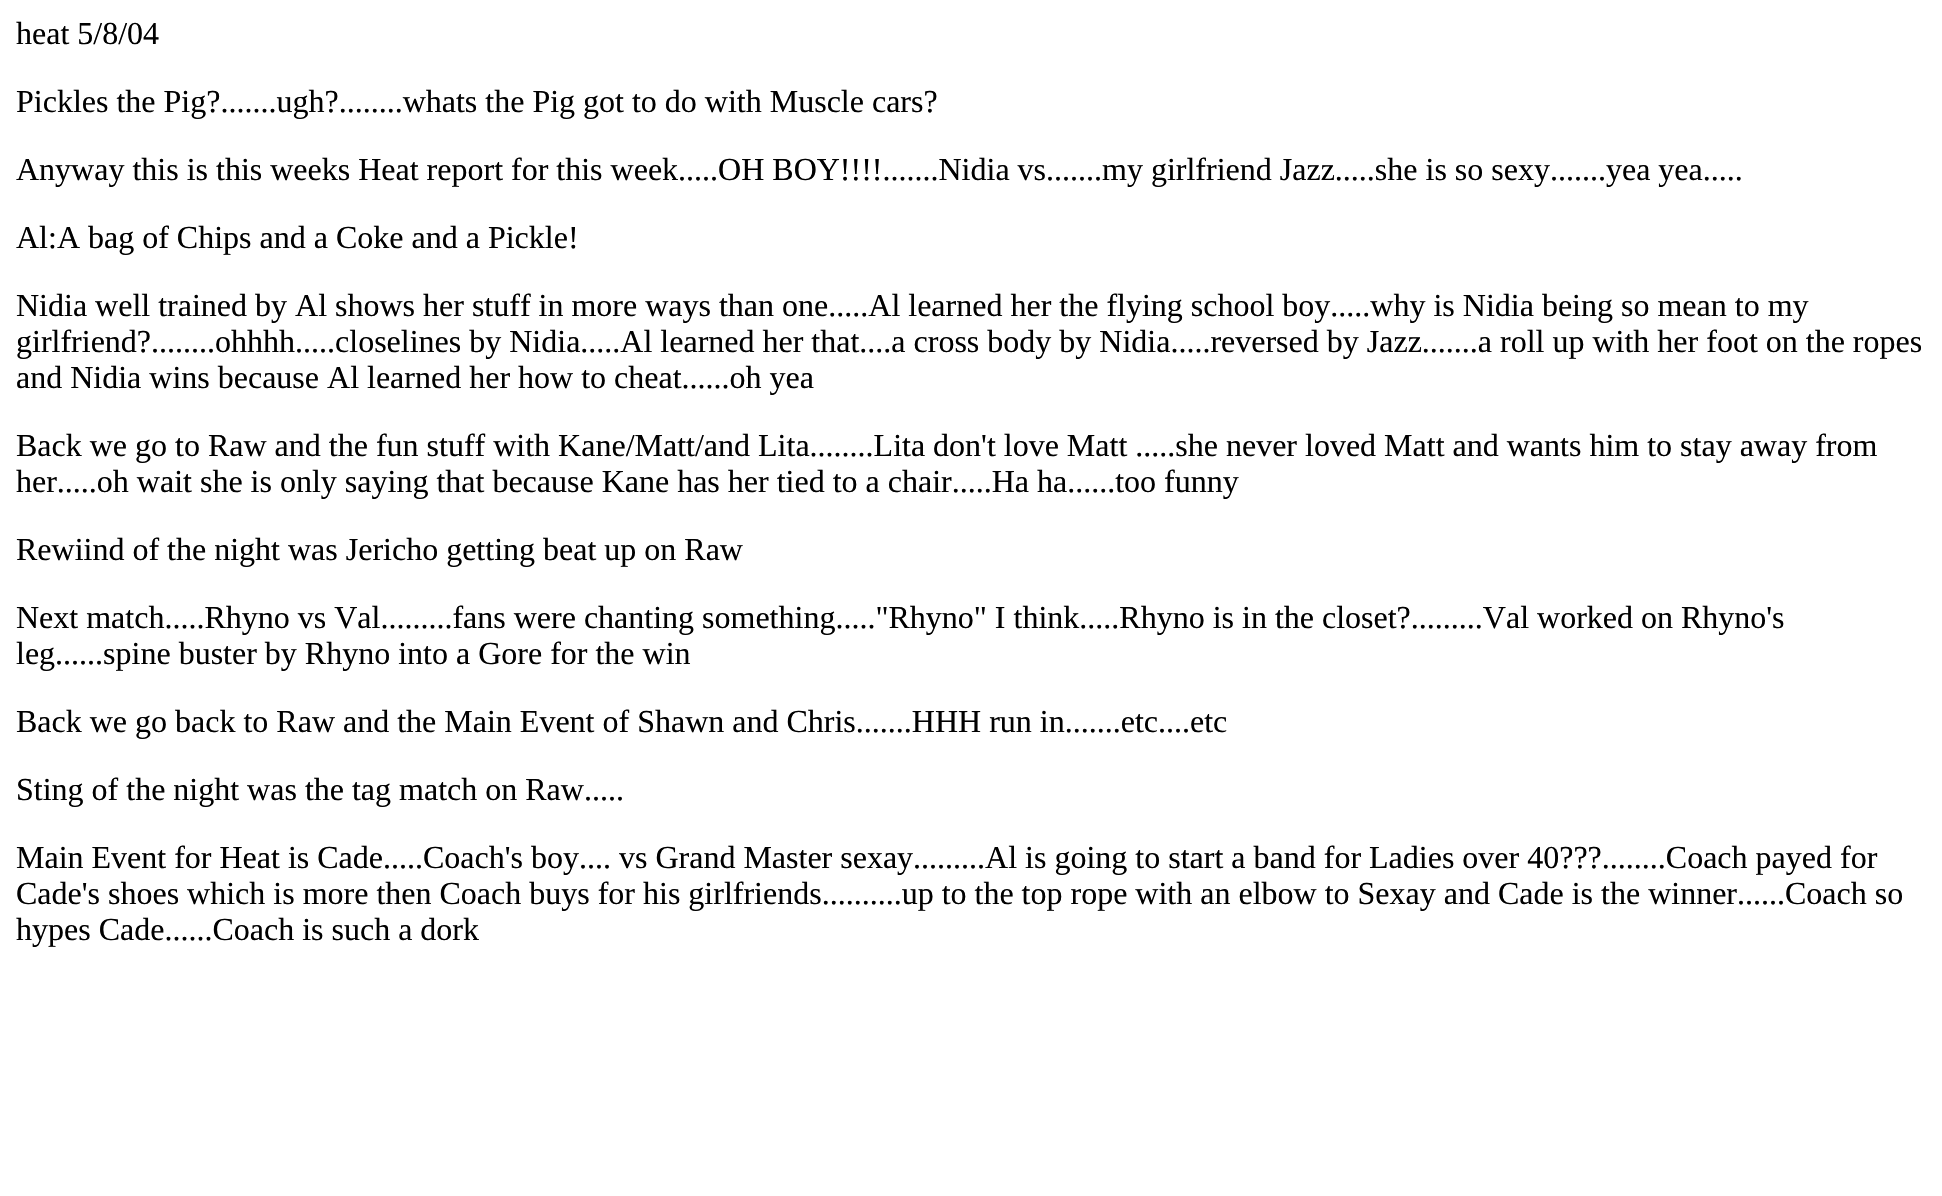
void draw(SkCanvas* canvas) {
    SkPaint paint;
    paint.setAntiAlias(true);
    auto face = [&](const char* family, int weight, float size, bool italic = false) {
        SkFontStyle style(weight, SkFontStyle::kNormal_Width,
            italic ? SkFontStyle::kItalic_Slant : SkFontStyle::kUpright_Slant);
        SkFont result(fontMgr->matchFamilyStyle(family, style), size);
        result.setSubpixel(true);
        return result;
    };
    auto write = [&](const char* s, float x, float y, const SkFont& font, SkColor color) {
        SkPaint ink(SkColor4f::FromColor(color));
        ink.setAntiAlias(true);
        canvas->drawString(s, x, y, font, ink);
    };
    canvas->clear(SK_ColorWHITE);
    auto kFont1 = face("Liberation Serif", 400, 32);
    write("heat 5/8/04", 16, 44, kFont1, SK_ColorBLACK);
    write("Pickles the Pig?.......ugh?........whats the Pig got to do with Muscle cars?", 16, 112, kFont1, SK_ColorBLACK);
    write("Anyway this is this weeks Heat report for this week.....OH BOY!!!!.......Nidia vs.......my girlfriend Jazz.....she is so sexy.......yea yea.....", 16, 180, kFont1, SK_ColorBLACK);
    write("Al:A bag of Chips and a Coke and a Pickle!", 16, 248, kFont1, SK_ColorBLACK);
    write("Nidia well trained by Al shows her stuff in more ways than one.....Al learned her the flying school boy.....why is Nidia being so mean to my", 16, 316, kFont1, SK_ColorBLACK);
    write("girlfriend?........ohhhh.....closelines by Nidia.....Al learned her that....a cross body by Nidia.....reversed by Jazz.......a roll up with her foot on the ropes", 16, 352, kFont1, SK_ColorBLACK);
    write("and Nidia wins because Al learned her how to cheat......oh yea", 16, 388, kFont1, SK_ColorBLACK);
    write("Back we go to Raw and the fun stuff with Kane/Matt/and Lita........Lita don't love Matt .....she never loved Matt and wants him to stay away from", 16, 456, kFont1, SK_ColorBLACK);
    write("her.....oh wait she is only saying that because Kane has her tied to a chair.....Ha ha......too funny", 16, 492, kFont1, SK_ColorBLACK);
    write("Rewiind of the night was Jericho getting beat up on Raw", 16, 560, kFont1, SK_ColorBLACK);
    write("Next match.....Rhyno vs Val.........fans were chanting something.....\"Rhyno\" I think.....Rhyno is in the closet?.........Val worked on Rhyno's", 16, 628, kFont1, SK_ColorBLACK);
    write("leg......spine buster by Rhyno into a Gore for the win", 16, 664, kFont1, SK_ColorBLACK);
    write("Back we go back to Raw and the Main Event of Shawn and Chris.......HHH run in.......etc....etc", 16, 732, kFont1, SK_ColorBLACK);
    write("Sting of the night was the tag match on Raw.....", 16, 800, kFont1, SK_ColorBLACK);
    write("Main Event for Heat is Cade.....Coach's boy.... vs Grand Master sexay.........Al is going to start a band for Ladies over 40?\077?........Coach payed for", 16, 868, kFont1, SK_ColorBLACK);
    write("Cade's shoes which is more then Coach buys for his girlfriends..........up to the top rope with an elbow to Sexay and Cade is the winner......Coach so", 16, 904, kFont1, SK_ColorBLACK);
    write("hypes Cade......Coach is such a dork", 16, 940, kFont1, SK_ColorBLACK);
}
